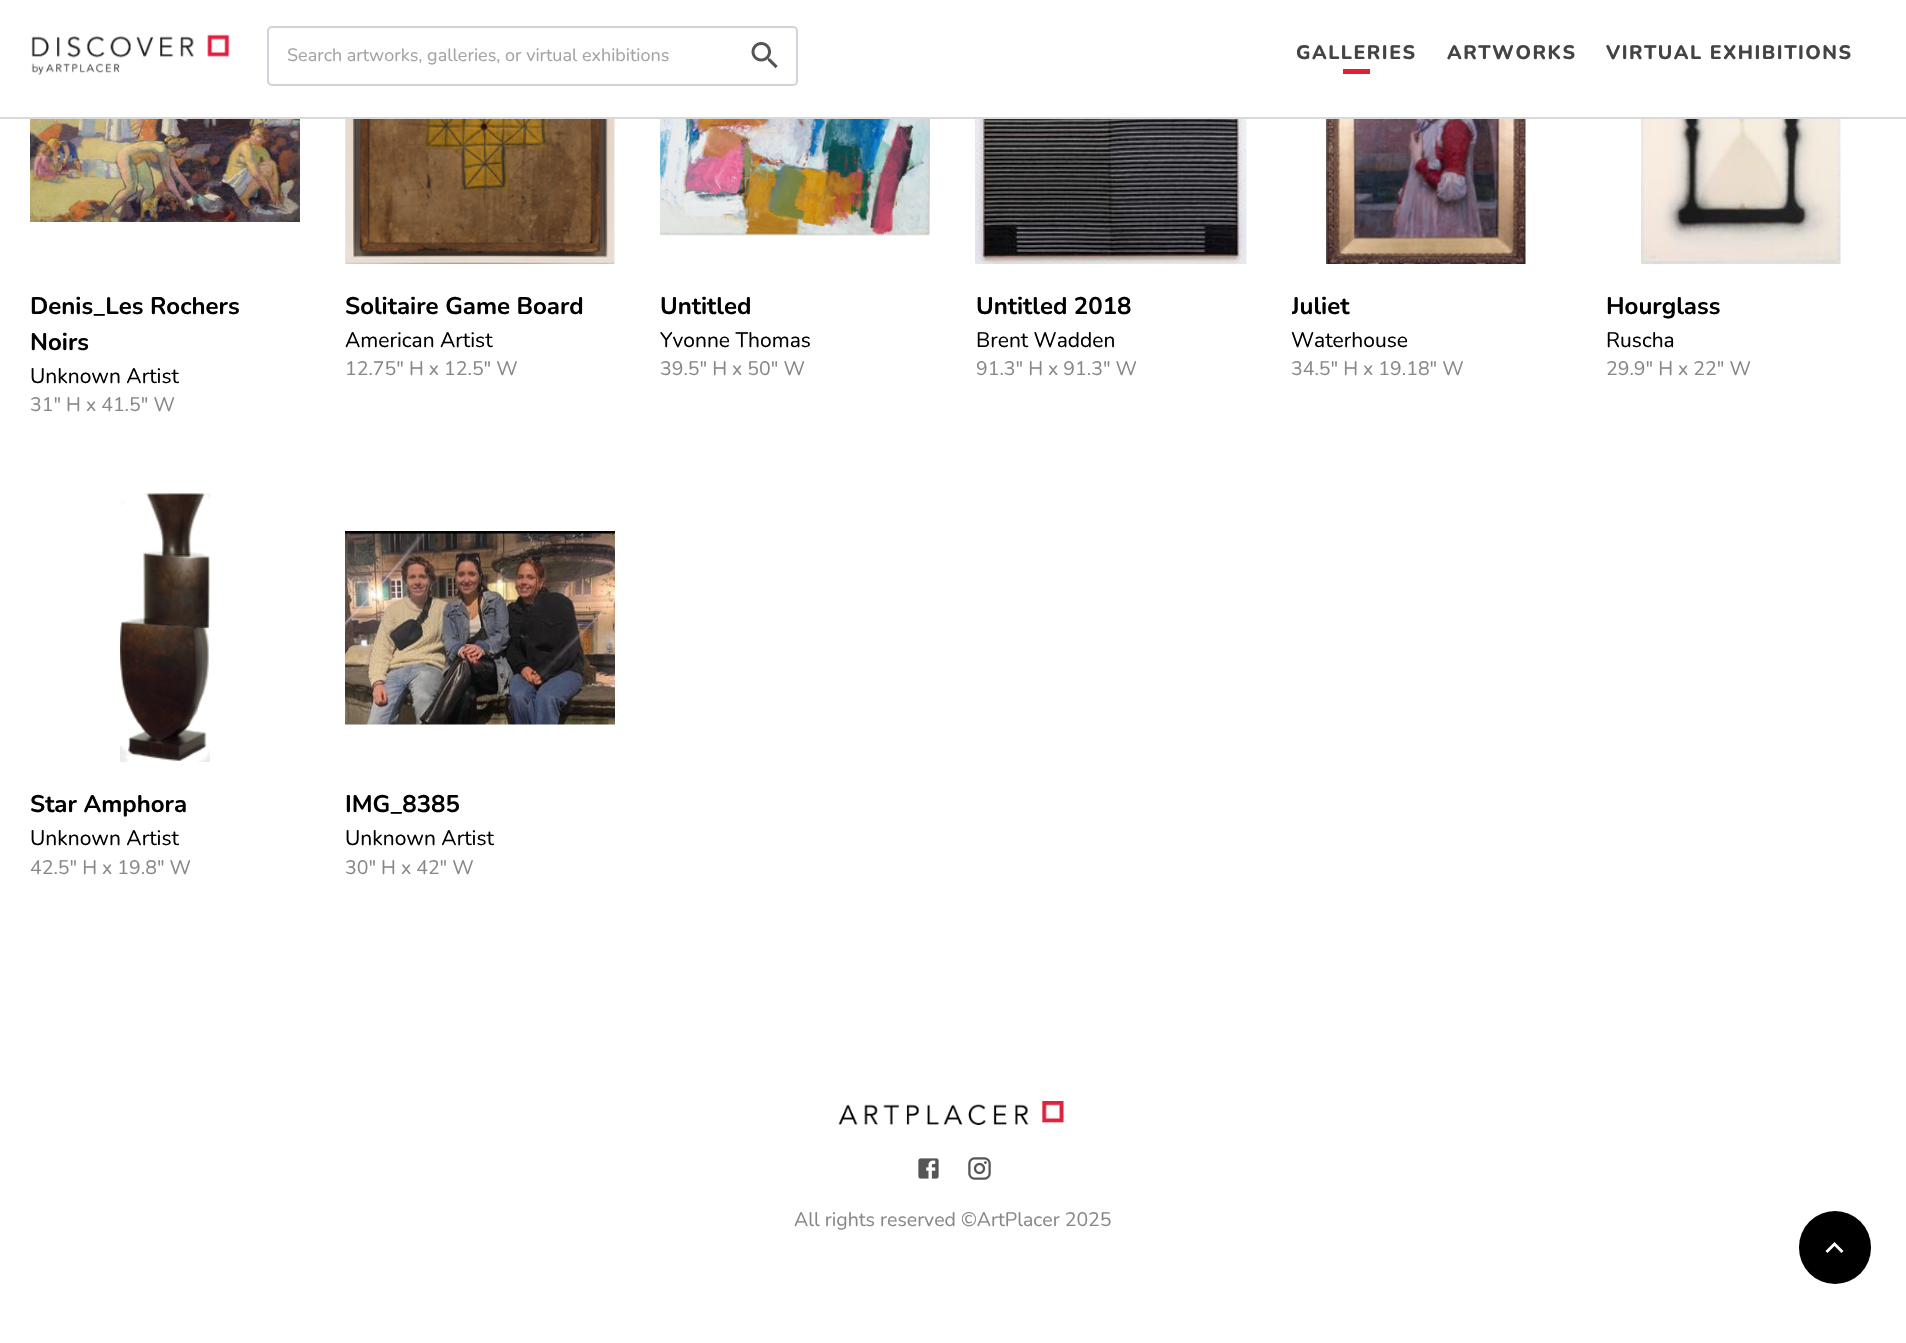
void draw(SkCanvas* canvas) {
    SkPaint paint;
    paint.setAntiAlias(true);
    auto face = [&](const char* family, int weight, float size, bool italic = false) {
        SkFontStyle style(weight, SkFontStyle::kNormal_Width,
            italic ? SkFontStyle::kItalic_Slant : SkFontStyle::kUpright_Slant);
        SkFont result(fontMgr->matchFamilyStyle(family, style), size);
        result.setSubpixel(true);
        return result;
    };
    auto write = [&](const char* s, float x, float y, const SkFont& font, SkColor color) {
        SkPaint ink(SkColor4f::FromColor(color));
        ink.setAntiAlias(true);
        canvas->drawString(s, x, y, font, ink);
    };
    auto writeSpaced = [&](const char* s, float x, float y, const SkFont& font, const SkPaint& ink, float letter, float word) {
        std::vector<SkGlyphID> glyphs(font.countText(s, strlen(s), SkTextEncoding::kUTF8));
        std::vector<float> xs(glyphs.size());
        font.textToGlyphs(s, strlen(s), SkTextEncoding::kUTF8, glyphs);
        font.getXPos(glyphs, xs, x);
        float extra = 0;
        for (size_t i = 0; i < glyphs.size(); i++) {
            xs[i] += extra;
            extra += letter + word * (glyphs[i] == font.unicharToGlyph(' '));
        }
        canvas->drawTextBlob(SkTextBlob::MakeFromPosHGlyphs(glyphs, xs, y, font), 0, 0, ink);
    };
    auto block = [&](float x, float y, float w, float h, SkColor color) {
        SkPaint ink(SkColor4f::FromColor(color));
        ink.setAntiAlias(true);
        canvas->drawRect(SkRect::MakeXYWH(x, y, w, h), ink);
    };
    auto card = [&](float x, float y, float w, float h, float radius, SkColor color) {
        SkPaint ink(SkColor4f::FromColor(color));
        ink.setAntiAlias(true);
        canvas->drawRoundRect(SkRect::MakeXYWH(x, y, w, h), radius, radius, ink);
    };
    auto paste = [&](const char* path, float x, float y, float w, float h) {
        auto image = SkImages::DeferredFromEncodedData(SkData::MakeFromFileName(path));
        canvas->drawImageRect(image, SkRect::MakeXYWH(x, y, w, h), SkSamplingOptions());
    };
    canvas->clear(SK_ColorWHITE);
    block(0, 117, 1906, 2, SkColorSetRGB(217, 217, 217));
    paste("pic1.png", 31, 34, 199, 42);
    paint.setStyle(SkPaint::kStroke_Style);
    paint.setStrokeWidth(2);
    paint.setColor(SkColorSetRGB(206, 212, 218));
    canvas->drawRoundRect(SkRect::MakeXYWH(268, 27, 529, 58), 4, 4, paint);
    auto kFont1 = face("Nunito", 400, 18);
    write("Search artworks, galleries, or virtual exhibitions", 287, 61, kFont1, SkColorSetRGB(164, 164, 164));
    paste("pic2.png", 751, 42, 27, 27);
    auto kFont2 = face("Nunito", 800, 19.5f);
    paint.setStyle(SkPaint::kFill_Style);
    paint.setColor(SkColorSetRGB(68, 68, 68));
    writeSpaced("GALLERIES", 1296, 59, kFont2, paint, 1.5f, 0);
    block(1343, 69, 27, 5, SkColorSetRGB(227, 30, 54));
    writeSpaced("ARTWORKS", 1447, 59, kFont2, paint, 1.5f, 0);
    writeSpaced("VIRTUAL EXHIBITIONS", 1606, 59, kFont2, paint, 1.5f, 0);
    paste("pic3.png", 30, 119, 270, 103);
    auto kFont3 = face("Nunito", 700, 24);
    write("Denis_Les Rochers", 30, 314, kFont3, SK_ColorBLACK);
    write("Noirs", 30, 350, kFont3, SK_ColorBLACK);
    auto kFont4 = face("Nunito", 400, 21);
    write("Unknown Artist", 30, 383, kFont4, SK_ColorBLACK);
    auto kFont5 = face("Nunito", 400, 19.5f);
    write("31\" H x 41.5\" W", 30, 411, kFont5, SkColorSetRGB(136, 136, 136));
    paste("pic4.png", 345, 119, 270, 145);
    write("Solitaire Game Board", 345, 314, kFont3, SK_ColorBLACK);
    write("American Artist", 345, 347, kFont4, SK_ColorBLACK);
    write("12.75\" H x 12.5\" W", 345, 375, kFont5, SkColorSetRGB(136, 136, 136));
    paste("pic5.png", 660, 119, 270, 117);
    write("Untitled", 660, 314, kFont3, SK_ColorBLACK);
    write("Yvonne Thomas", 660, 347, kFont4, SK_ColorBLACK);
    write("39.5\" H x 50\" W", 660, 375, kFont5, SkColorSetRGB(136, 136, 136));
    paste("pic6.png", 975, 119, 272, 145);
    write("Untitled 2018", 976, 314, kFont3, SK_ColorBLACK);
    write("Brent Wadden", 976, 347, kFont4, SK_ColorBLACK);
    write("91.3\" H x 91.3\" W", 976, 375, kFont5, SkColorSetRGB(136, 136, 136));
    paste("pic7.png", 1326, 119, 200, 145);
    canvas->save();
    canvas->clipRect(SkRect::MakeXYWH(1292, 288, 270, 36));
    write("Juliet", 1291, 314, kFont3, SK_ColorBLACK);
    canvas->restore();
    write("Waterhouse", 1291, 347, kFont4, SK_ColorBLACK);
    write("34.5\" H x 19.18\" W", 1291, 375, kFont5, SkColorSetRGB(136, 136, 136));
    paste("pic8.png", 1641, 119, 200, 145);
    write("Hourglass", 1606, 314, kFont3, SK_ColorBLACK);
    write("Ruscha", 1606, 347, kFont4, SK_ColorBLACK);
    write("29.9\" H x 22\" W", 1606, 375, kFont5, SkColorSetRGB(136, 136, 136));
    paste("pic9.png", 120, 493, 90, 269);
    write("Star Amphora", 30, 812, kFont3, SK_ColorBLACK);
    write("Unknown Artist", 30, 845, kFont4, SK_ColorBLACK);
    write("42.5\" H x 19.8\" W", 30, 874, kFont5, SkColorSetRGB(136, 136, 136));
    paste("pic10.png", 345, 531, 270, 194);
    write("IMG_8385", 345, 812, kFont3, SK_ColorBLACK);
    write("Unknown Artist", 345, 845, kFont4, SK_ColorBLACK);
    write("30\" H x 42\" W", 345, 874, kFont5, SkColorSetRGB(136, 136, 136));
    paste("pic11.png", 838, 1101, 226, 24);
    paste("pic12.png", 918, 1158, 21, 21);
    paste("pic13.png", 968, 1157, 23, 23);
    write("All rights reserved ©ArtPlacer 2025", 794, 1226, kFont5, SkColorSetRGB(136, 136, 136));
    card(1799, 1211, 72, 73, 36, SK_ColorBLACK);
    paint.setColor(SK_ColorWHITE);
    canvas->drawPath(SkPathBuilder().moveTo(1834.5f, 1242).lineTo(1825.5f, 1251).lineTo(1827.5f, 1253).lineTo(1834.5f, 1246).lineTo(1841.5f, 1253).lineTo(1843.5f, 1251).close().detach(), paint);
}
